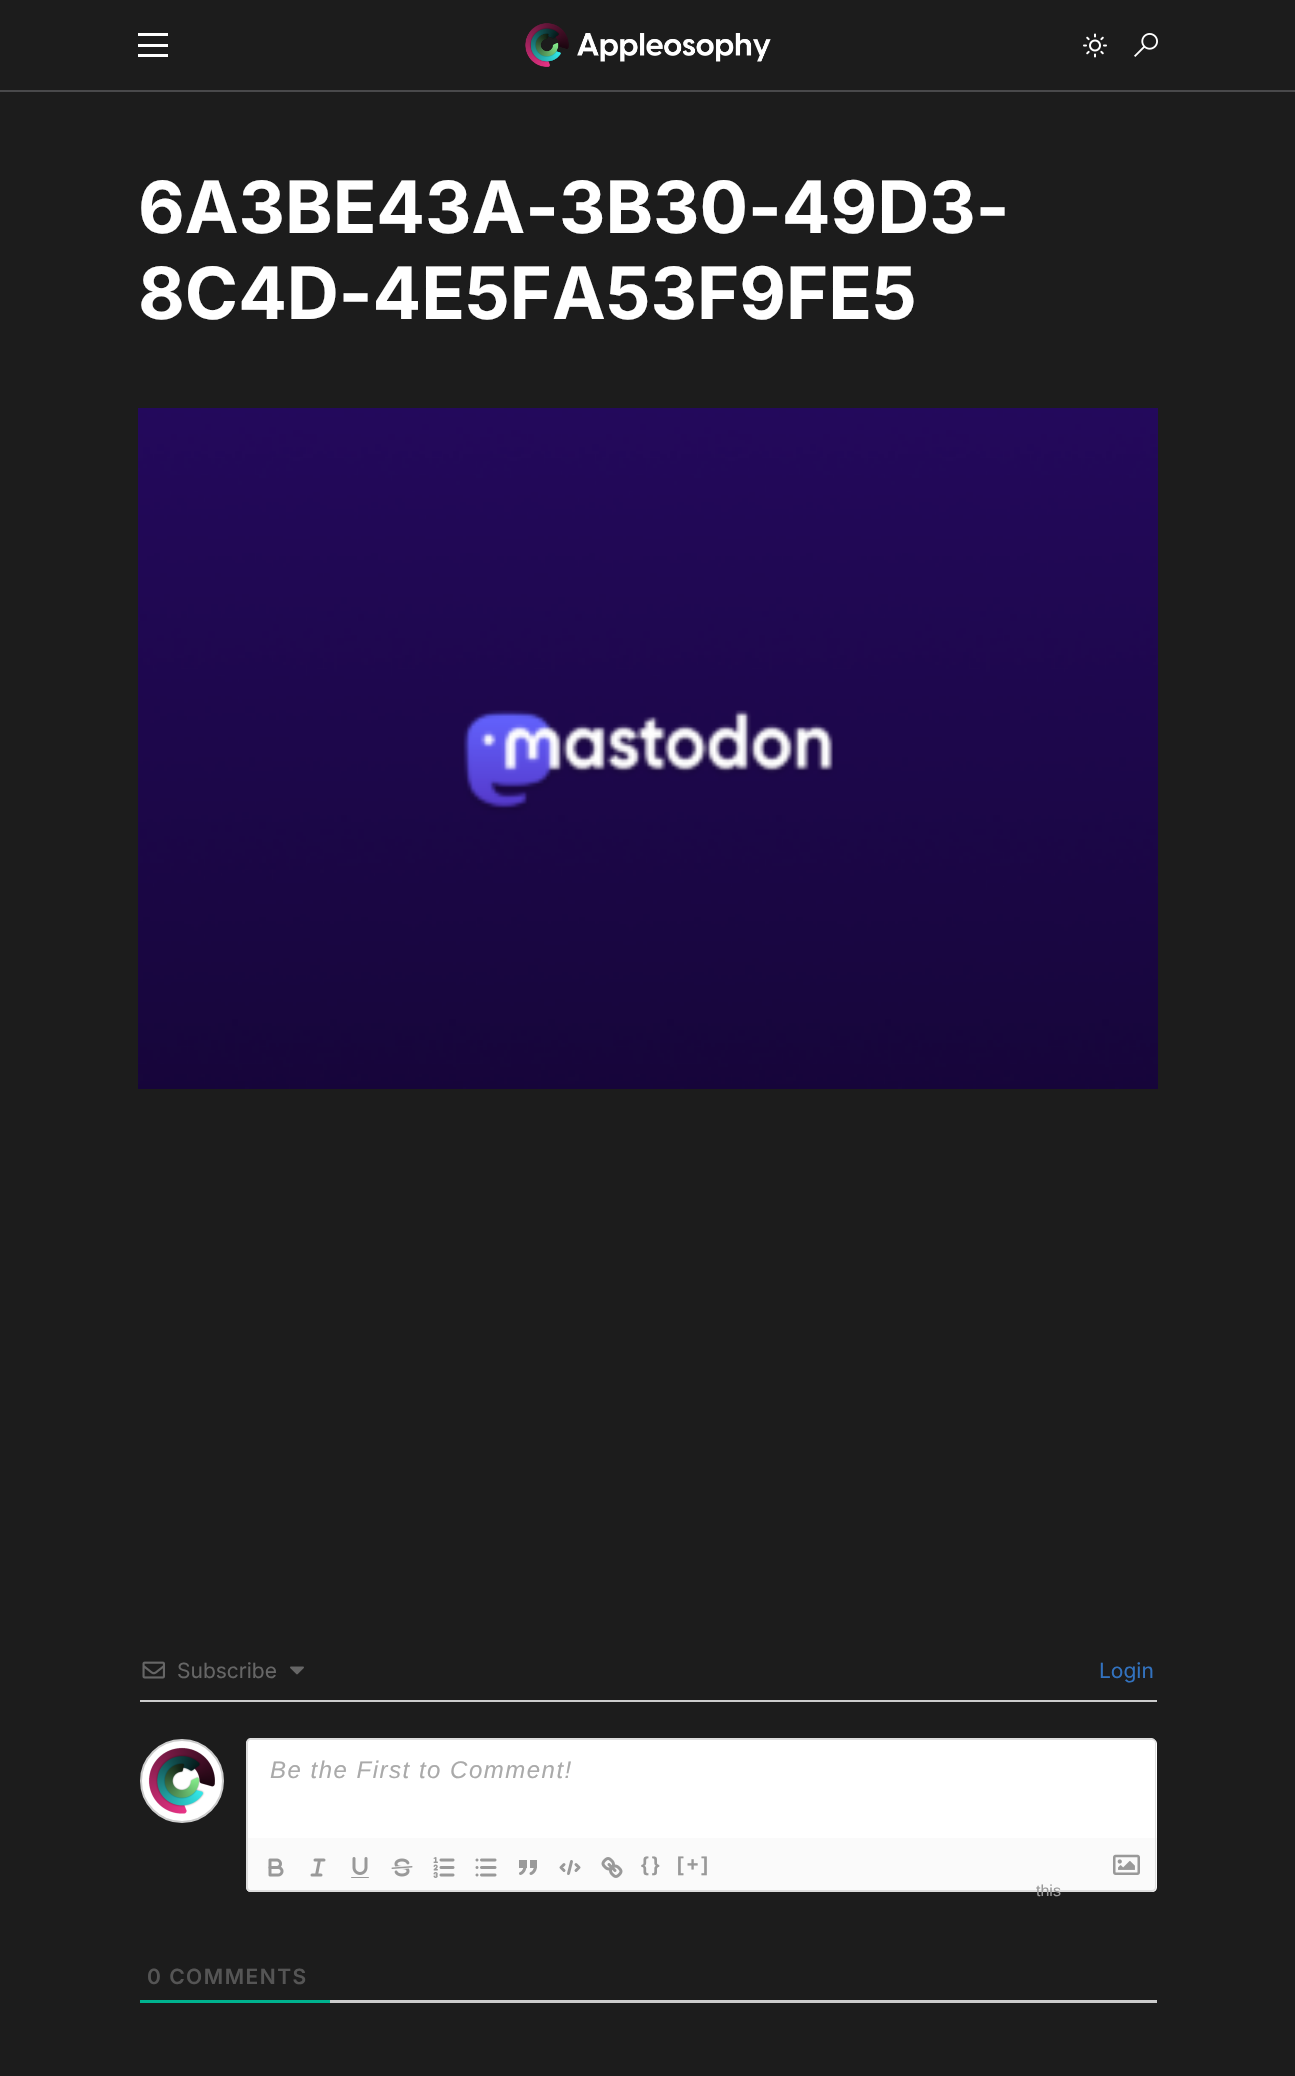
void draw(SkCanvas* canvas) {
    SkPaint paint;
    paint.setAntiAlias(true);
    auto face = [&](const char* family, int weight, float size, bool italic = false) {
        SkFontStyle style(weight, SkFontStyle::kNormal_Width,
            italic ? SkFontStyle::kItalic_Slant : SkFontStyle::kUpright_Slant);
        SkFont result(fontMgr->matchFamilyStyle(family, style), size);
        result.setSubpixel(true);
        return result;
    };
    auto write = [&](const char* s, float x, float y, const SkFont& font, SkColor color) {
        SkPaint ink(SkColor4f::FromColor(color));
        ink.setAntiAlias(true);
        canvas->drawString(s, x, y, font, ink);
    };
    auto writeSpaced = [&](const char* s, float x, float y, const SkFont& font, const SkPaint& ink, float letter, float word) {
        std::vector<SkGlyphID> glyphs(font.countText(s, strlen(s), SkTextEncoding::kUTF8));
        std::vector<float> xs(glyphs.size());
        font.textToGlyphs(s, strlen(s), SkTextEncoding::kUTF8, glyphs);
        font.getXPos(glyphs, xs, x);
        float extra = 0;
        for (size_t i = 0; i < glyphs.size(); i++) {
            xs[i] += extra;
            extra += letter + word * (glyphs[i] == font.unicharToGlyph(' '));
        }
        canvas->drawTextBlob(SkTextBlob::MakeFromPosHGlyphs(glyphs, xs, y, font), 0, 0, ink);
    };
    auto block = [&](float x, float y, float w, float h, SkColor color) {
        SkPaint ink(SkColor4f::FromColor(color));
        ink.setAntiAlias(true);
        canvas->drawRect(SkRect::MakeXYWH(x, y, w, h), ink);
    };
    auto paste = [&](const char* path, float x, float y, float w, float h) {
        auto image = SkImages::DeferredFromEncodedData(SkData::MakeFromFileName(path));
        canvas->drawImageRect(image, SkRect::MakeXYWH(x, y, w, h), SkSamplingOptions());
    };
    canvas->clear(SkColorSetRGB(28, 28, 28));
    block(0, 90, 1295, 2, SkColorSetRGB(73, 73, 75));
    block(138, 33, 30, 3, SK_ColorWHITE);
    block(138, 44, 30, 3, SK_ColorWHITE);
    block(138, 54, 30, 3, SK_ColorWHITE);
    paste("pic1.png", 525, 23, 246, 44);
    paste("pic2.png", 1083, 33, 24, 25);
    paste("pic3.png", 1134, 33, 24, 24);
    auto kFont1 = face("Inter", 700, 72);
    write("6A3BE43A-3B30-49D3-", 138, 233, kFont1, SK_ColorWHITE);
    write("8C4D-4E5FA53F9FE5", 138, 319, kFont1, SK_ColorWHITE);
    paste("pic4.png", 138, 408, 1020, 681);
    block(140, 1700, 1017, 2, SkColorSetRGB(204, 204, 204));
    paste("pic5.png", 142, 1661, 23, 18);
    auto kFont2 = face("Inter", 400, 21);
    write("Subscribe", 177, 1678, kFont2, SkColorSetRGB(102, 102, 102));
    paste("pic6.png", 290, 1666, 14, 9);
    write("Login", 1099, 1678, kFont2, SkColorSetRGB(50, 114, 191));
    paint.setColor(SK_ColorWHITE);
    canvas->drawCircle(182, 1781, 41, paint);
    paint.setStyle(SkPaint::kStroke_Style);
    paint.setStrokeWidth(2);
    paint.setColor(SkColorSetRGB(204, 204, 204));
    canvas->drawCircle(182, 1781, 41, paint);
    paste("pic7.png", 148, 1747, 67, 67);
    paint.setStyle(SkPaint::kFill_Style);
    paint.setColor(SK_ColorWHITE);
    canvas->drawPath(SkPathBuilder().moveTo(251, 1739).lineTo(1152, 1739).cubicTo(1155, 1739, 1157, 1741, 1157, 1744).lineTo(1157, 1838).lineTo(246, 1838).lineTo(246, 1744).cubicTo(246, 1741, 248, 1739, 251, 1739).close().detach(), paint);
    paint.setColor(SkColorSetRGB(221, 221, 221));
    canvas->drawPath(SkPathBuilder(SkPathFillType::kEvenOdd).moveTo(250, 1738).lineTo(1152, 1738).cubicTo(1154, 1738, 1156, 1741, 1156, 1743).lineTo(1156, 1838).lineTo(246, 1838).lineTo(246, 1743).cubicTo(246, 1741, 248, 1738, 250, 1738).close().moveTo(250, 1740).lineTo(1152, 1740).cubicTo(1154, 1740, 1155, 1741, 1155, 1743).lineTo(1155, 1838).lineTo(248, 1838).lineTo(248, 1743).cubicTo(248, 1741, 249, 1740, 250, 1740).close().detach(), paint);
    auto kFont3 = face("Liberation Sans", 400, 24, true);
    paint.setColor(SkColorSetRGB(170, 170, 170));
    writeSpaced("Be the First to Comment!", 270, 1778, kFont3, paint, 1.5f, 0);
    paint.setColor(SkColorSetRGB(250, 250, 250));
    canvas->drawPath(SkPathBuilder().moveTo(246, 1838).lineTo(1157, 1838).lineTo(1157, 1887).cubicTo(1157, 1890, 1155, 1892, 1152, 1892).lineTo(251, 1892).cubicTo(248, 1892, 246, 1890, 246, 1887).close().detach(), paint);
    paint.setColor(SkColorSetRGB(221, 221, 221));
    canvas->drawPath(SkPathBuilder(SkPathFillType::kEvenOdd).moveTo(246, 1838).lineTo(1156, 1838).lineTo(1156, 1887).cubicTo(1156, 1889, 1154, 1892, 1152, 1892).lineTo(250, 1892).cubicTo(248, 1892, 246, 1889, 246, 1887).close().moveTo(248, 1838).lineTo(1155, 1838).lineTo(1155, 1887).cubicTo(1155, 1889, 1154, 1890, 1152, 1890).lineTo(250, 1890).cubicTo(249, 1890, 248, 1889, 248, 1887).close().detach(), paint);
    paste("pic8.png", 268, 1858, 16, 19);
    paint.setStyle(SkPaint::kStroke_Style);
    paint.setStrokeWidth(3);
    paint.setStrokeCap(SkPaint::kRound_Cap);
    paint.setStrokeJoin(SkPaint::kRound_Join);
    paint.setColor(SkColorSetRGB(153, 153, 153));
    canvas->drawPath(SkPathBuilder().moveTo(315, 1860).lineTo(324, 1860).moveTo(312, 1875).lineTo(321, 1875).moveTo(316.5f, 1875).lineTo(319.5f, 1860).detach(), paint);
    paste("pic9.png", 351, 1857, 18, 21);
    paste("pic10.png", 391, 1858, 22, 19);
    paste("pic11.png", 433, 1857, 22, 21);
    paste("pic12.png", 475, 1858, 22, 19);
    paste("pic13.png", 519, 1860, 18, 15);
    canvas->drawPath(SkPathBuilder().moveTo(564, 1864.5f).lineTo(561, 1867.5f).lineTo(564, 1870.5f).moveTo(576, 1864.5f).lineTo(579, 1867.5f).lineTo(576, 1870.5f).moveTo(571.5f, 1861.5f).lineTo(568.5f, 1873.5f).detach(), paint);
    paste("pic14.png", 601, 1857, 22, 21);
    auto kFont4 = face("Liberation Sans", 700, 20);
    paint.setStyle(SkPaint::kFill_Style);
    writeSpaced("{}", 641, 1871, kFont4, paint, 3, 0);
    writeSpaced("[+]", 677, 1871, kFont4, paint, 3, 0);
    paste("pic15.png", 1113, 1854, 27, 21);
    auto kFont5 = face("Liberation Sans", 400, 16);
    write("this", 1036, 1896, kFont5, SkColorSetRGB(153, 153, 153));
    block(330, 2000, 827, 3, SkColorSetRGB(204, 204, 204));
    block(140, 2000, 190, 3, SkColorSetRGB(0, 179, 143));
    auto kFont6 = face("Inter", 600, 21);
    paint.setColor(SkColorSetRGB(85, 85, 85));
    writeSpaced("0 COMMENTS", 147, 1984, kFont6, paint, 1.5f, 0);
}
